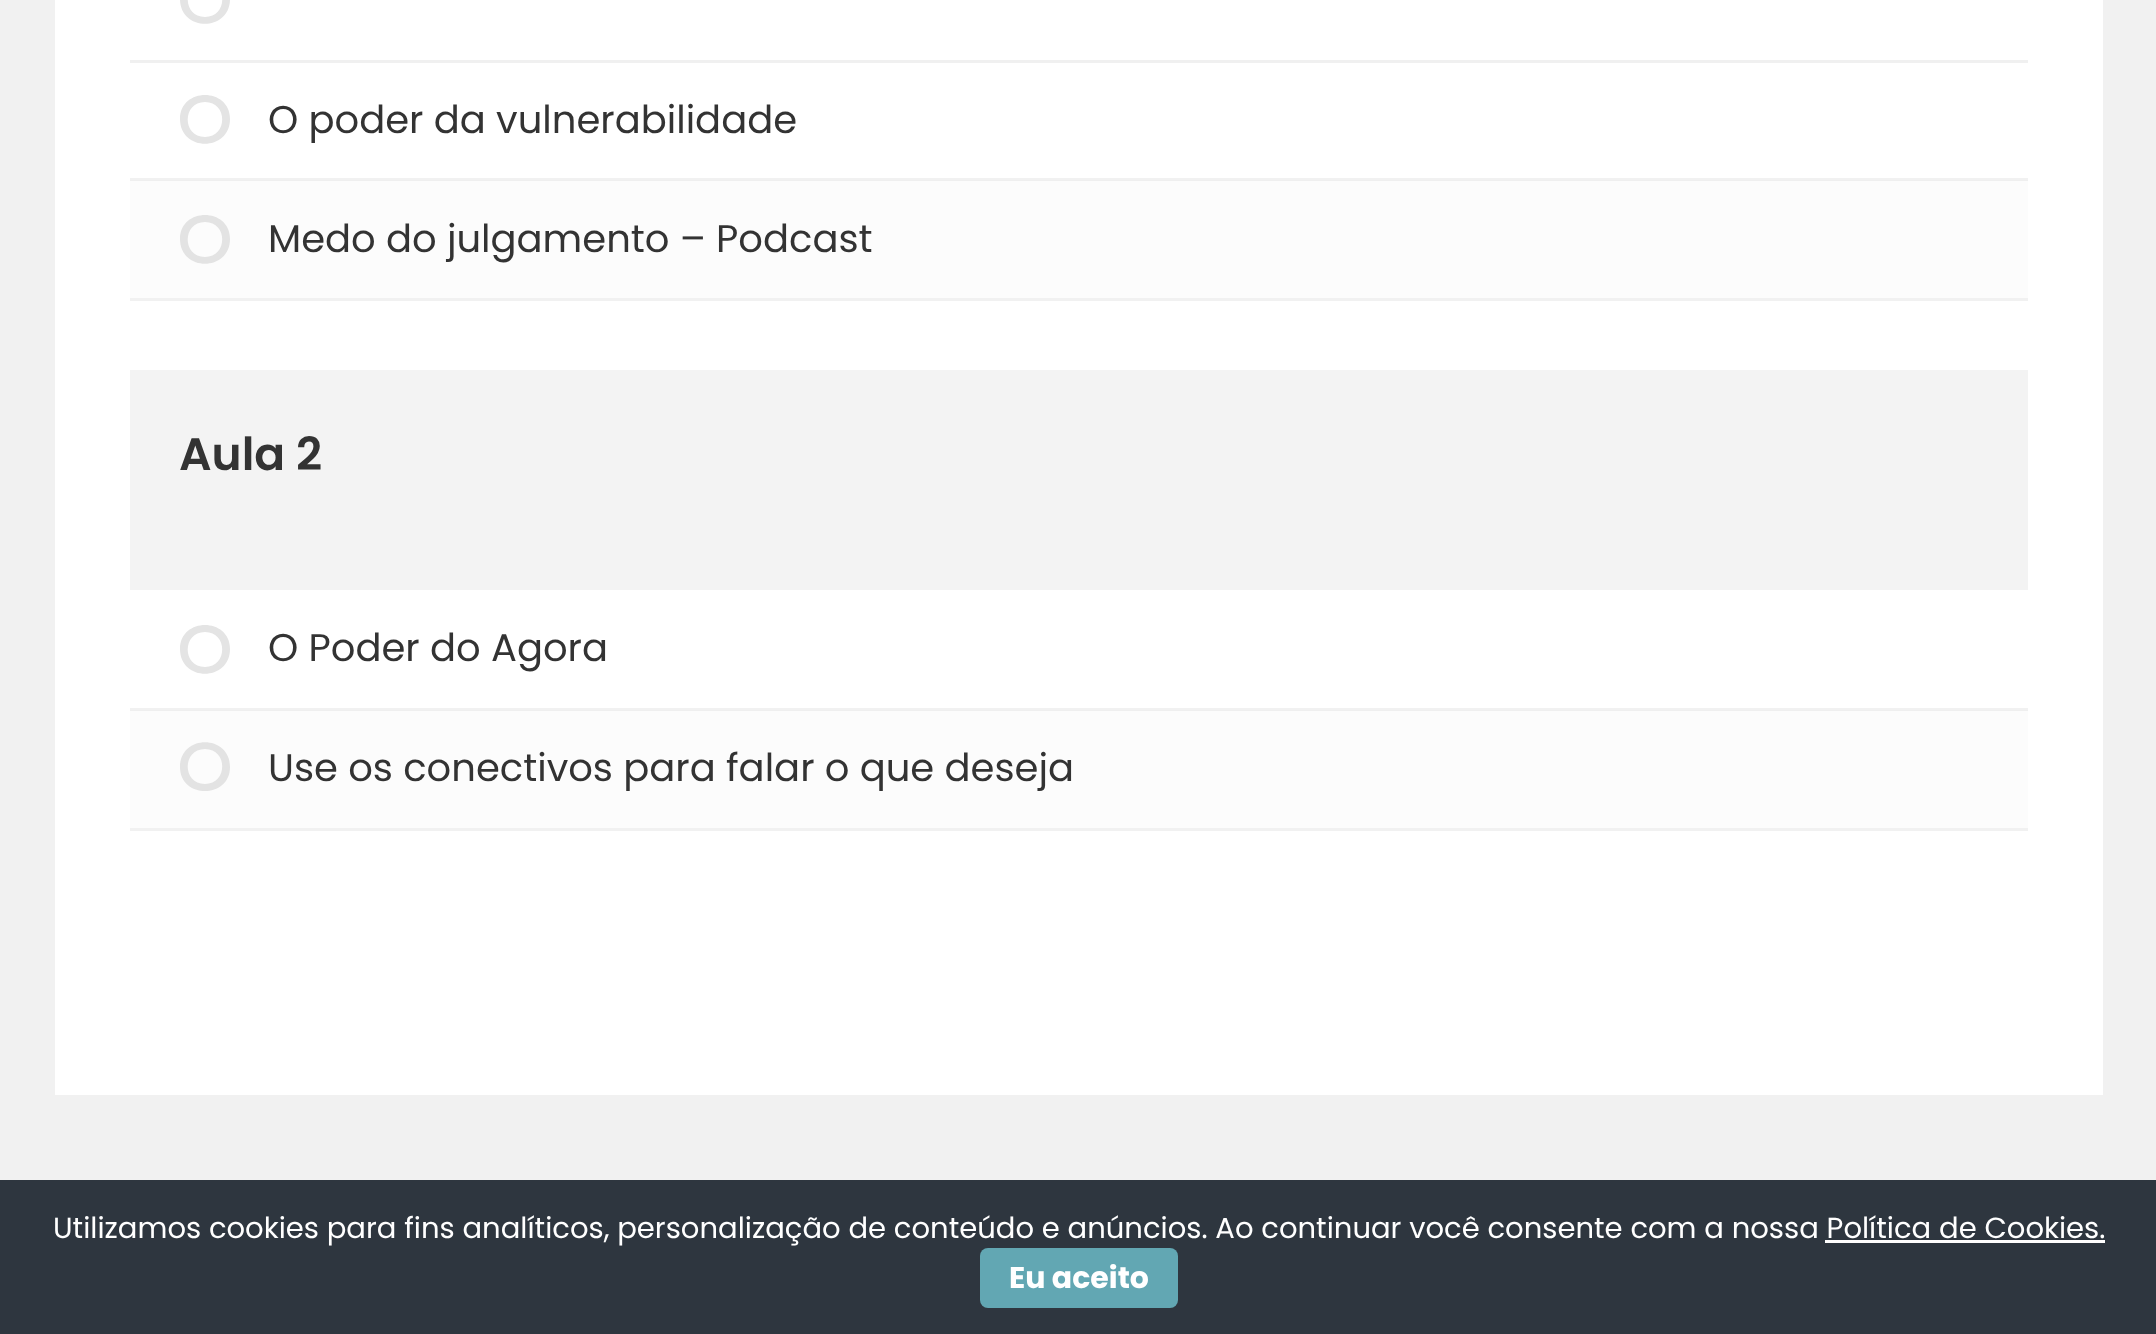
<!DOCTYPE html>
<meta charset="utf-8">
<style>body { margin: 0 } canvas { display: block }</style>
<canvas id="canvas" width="2156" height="1334"></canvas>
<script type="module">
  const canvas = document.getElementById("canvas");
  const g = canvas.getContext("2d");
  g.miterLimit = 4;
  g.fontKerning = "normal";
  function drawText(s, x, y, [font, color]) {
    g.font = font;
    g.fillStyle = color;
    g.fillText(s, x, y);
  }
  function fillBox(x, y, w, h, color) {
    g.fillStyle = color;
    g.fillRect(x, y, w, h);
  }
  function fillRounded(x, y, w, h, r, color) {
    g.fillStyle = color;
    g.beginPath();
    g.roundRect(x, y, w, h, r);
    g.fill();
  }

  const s1 = ["38.5px Poppins", "#333333"];
  const s2 = ["600 45.5px Poppins", "#333333"];
  const s3 = ["29.05px Poppins", "#FFFFFF"];
  const s4 = ["bold 30px Poppins", "#FFFFFF"];

  fillBox(0, 0, 2156, 1334, "#F1F1F1");
  fillBox(55, 0, 2048, 1095, "#FFFFFF");
  fillBox(130, 711, 1898, 117, "#FCFCFC");
  fillBox(130, 181, 1898, 117, "#FCFCFC");
  fillBox(130, 60, 1898, 3, "#F0F0F0");
  g.fillStyle = "#E4E4E4";
  g.beginPath();
  g.moveTo(205, -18);
  g.bezierCurveTo(228, -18, 228, 17, 205, 17);
  g.bezierCurveTo(182, 17, 182, -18, 205, -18);
  g.closePath();
  g.moveTo(230, -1);
  g.bezierCurveTo(230, -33, 180, -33, 180, -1);
  g.bezierCurveTo(180, 32, 230, 32, 230, -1);
  g.closePath();
  g.fill();
  fillBox(130, 178, 1898, 2, "#F1F1F1");
  fillBox(130, 180, 1898, 1, "#EFEFEF");
  g.fillStyle = "#E4E4E4";
  g.beginPath();
  g.moveTo(205, 102);
  g.bezierCurveTo(228, 102, 228, 137, 205, 137);
  g.bezierCurveTo(182, 137, 182, 102, 205, 102);
  g.closePath();
  g.moveTo(230, 119);
  g.bezierCurveTo(230, 87, 180, 87, 180, 119);
  g.bezierCurveTo(180, 152, 230, 152, 230, 119);
  g.closePath();
  g.fill();
  drawText("O poder da vulnerabilidade", 268, 133, s1);
  fillBox(130, 298, 1898, 3, "#F1F1F1");
  g.fillStyle = "#E3E3E3";
  g.beginPath();
  g.moveTo(205, 222);
  g.bezierCurveTo(228, 222, 228, 257, 205, 257);
  g.bezierCurveTo(182, 257, 182, 222, 205, 222);
  g.closePath();
  g.moveTo(230, 239);
  g.bezierCurveTo(230, 207, 180, 207, 180, 239);
  g.bezierCurveTo(180, 272, 230, 272, 230, 239);
  g.closePath();
  g.fill();
  drawText("Medo do julgamento – Podcast", 268, 252, s1);
  fillBox(130, 370, 1898, 220, "#F3F3F3");
  drawText("Aula 2", 179, 470, s2);
  fillBox(130, 708, 1898, 2, "#F1F1F1");
  fillBox(130, 710, 1898, 1, "#EFEFEF");
  g.fillStyle = "#E4E4E4";
  g.beginPath();
  g.moveTo(205, 632);
  g.bezierCurveTo(228, 632, 228, 667, 205, 667);
  g.bezierCurveTo(182, 667, 182, 632, 205, 632);
  g.closePath();
  g.moveTo(230, 649);
  g.bezierCurveTo(230, 617, 180, 617, 180, 649);
  g.bezierCurveTo(180, 682, 230, 682, 230, 649);
  g.closePath();
  g.fill();
  drawText("O Poder do Agora", 268, 661, s1);
  fillBox(130, 828, 1898, 3, "#F1F1F1");
  g.fillStyle = "#E3E3E3";
  g.beginPath();
  g.moveTo(205, 749);
  g.bezierCurveTo(228, 749, 228, 784, 205, 784);
  g.bezierCurveTo(182, 784, 182, 749, 205, 749);
  g.closePath();
  g.moveTo(230, 767);
  g.bezierCurveTo(230, 734, 180, 734, 180, 767);
  g.bezierCurveTo(180, 799, 230, 799, 230, 767);
  g.closePath();
  g.fill();
  drawText("Use os conectivos para falar o que deseja", 268, 781, s1);
  fillBox(0, 1180, 2156, 154, "#2E363F");
  drawText("Utilizamos cookies para fins analíticos, personalização de conteúdo e anúncios. Ao continuar você consente com a nossa Política de Cookies.", 53, 1238, s3);
  fillBox(1825, 1240, 280, 3, "#FFFFFF");
  fillRounded(980, 1248, 198, 60, 8, "#62A7B3");
  drawText("Eu aceito", 1009, 1288, s4);
</script>
